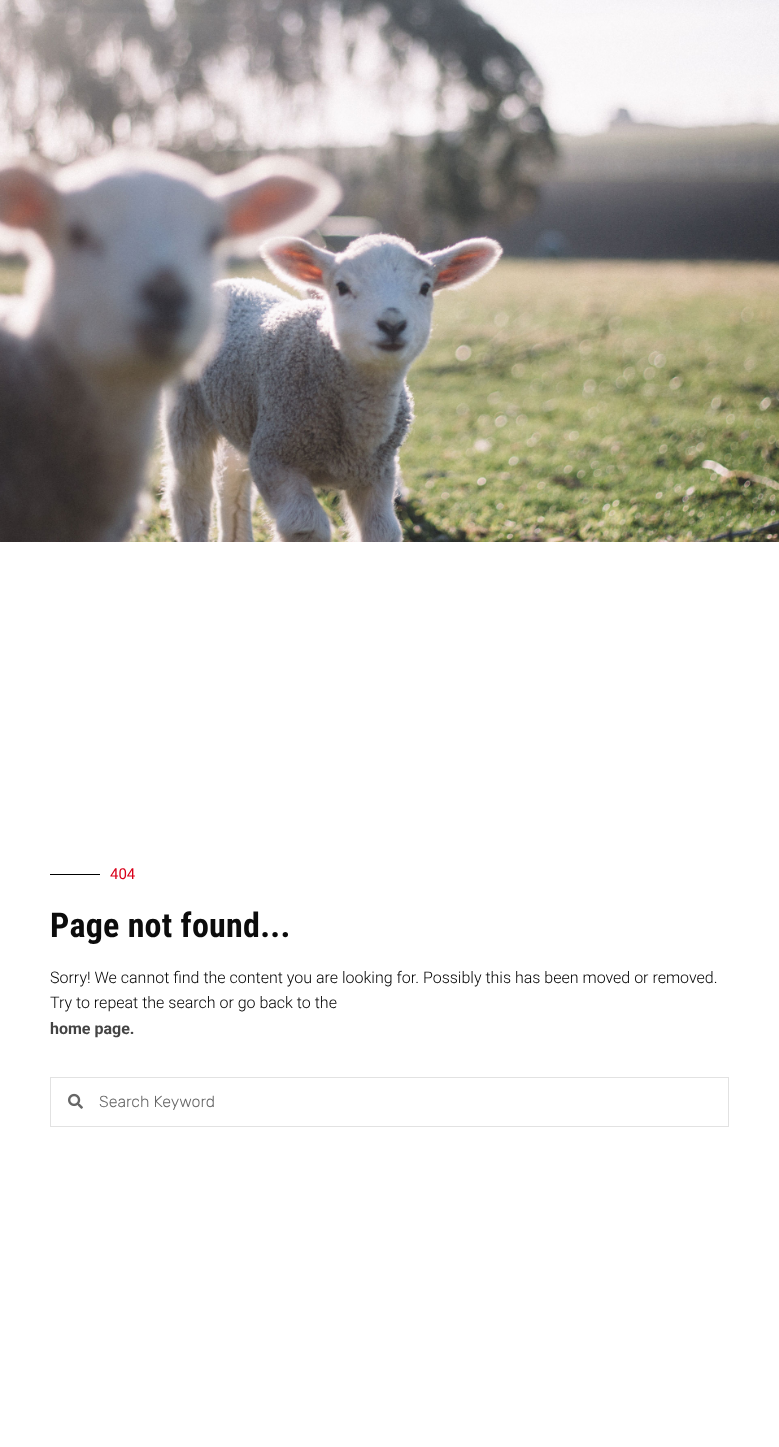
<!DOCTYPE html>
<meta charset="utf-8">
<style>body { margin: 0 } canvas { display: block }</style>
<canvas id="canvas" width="779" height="1447"></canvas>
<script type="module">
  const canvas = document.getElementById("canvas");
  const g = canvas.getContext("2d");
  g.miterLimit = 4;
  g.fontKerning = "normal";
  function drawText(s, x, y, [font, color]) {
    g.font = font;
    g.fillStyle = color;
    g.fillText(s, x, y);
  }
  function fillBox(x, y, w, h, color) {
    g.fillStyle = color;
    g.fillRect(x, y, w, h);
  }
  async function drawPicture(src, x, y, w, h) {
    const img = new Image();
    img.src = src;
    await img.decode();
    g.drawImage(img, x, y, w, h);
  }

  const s1 = ["15px Roboto", "#D9001A"];
  const s2 = ["bold 34px Roboto Condensed", "#0C0C0C"];
  const s3 = ["300 16px Roboto", "#000000"];
  const s4 = ["bold 16px Roboto", "#444444"];
  const s5 = ["300 16px Rubik", "#666666"];

  fillBox(0, 0, 779, 1447, "#FFFFFF");
  await drawPicture("pic1.png", 0, 0, 779, 542);
  fillBox(50, 874, 50, 1, "#000000");
  drawText("404", 110, 879, s1);
  g.letterSpacing = "0.25px";
  drawText("Page not found...", 50, 937, s2);
  g.letterSpacing = "0px";
  drawText("Sorry! We cannot find the content you are looking for. Possibly this has been moved or removed.", 50, 983, s3);
  drawText("Try to repeat the search or go back to the", 50, 1008, s3);
  drawText("home page.", 50, 1034, s4);
  g.strokeStyle = "#E2E2E2";
  g.strokeRect(50.5, 1077.5, 678, 49);
  await drawPicture("pic2.png", 68, 1093, 15, 16);
  drawText("Search Keyword", 99, 1107, s5);
</script>
